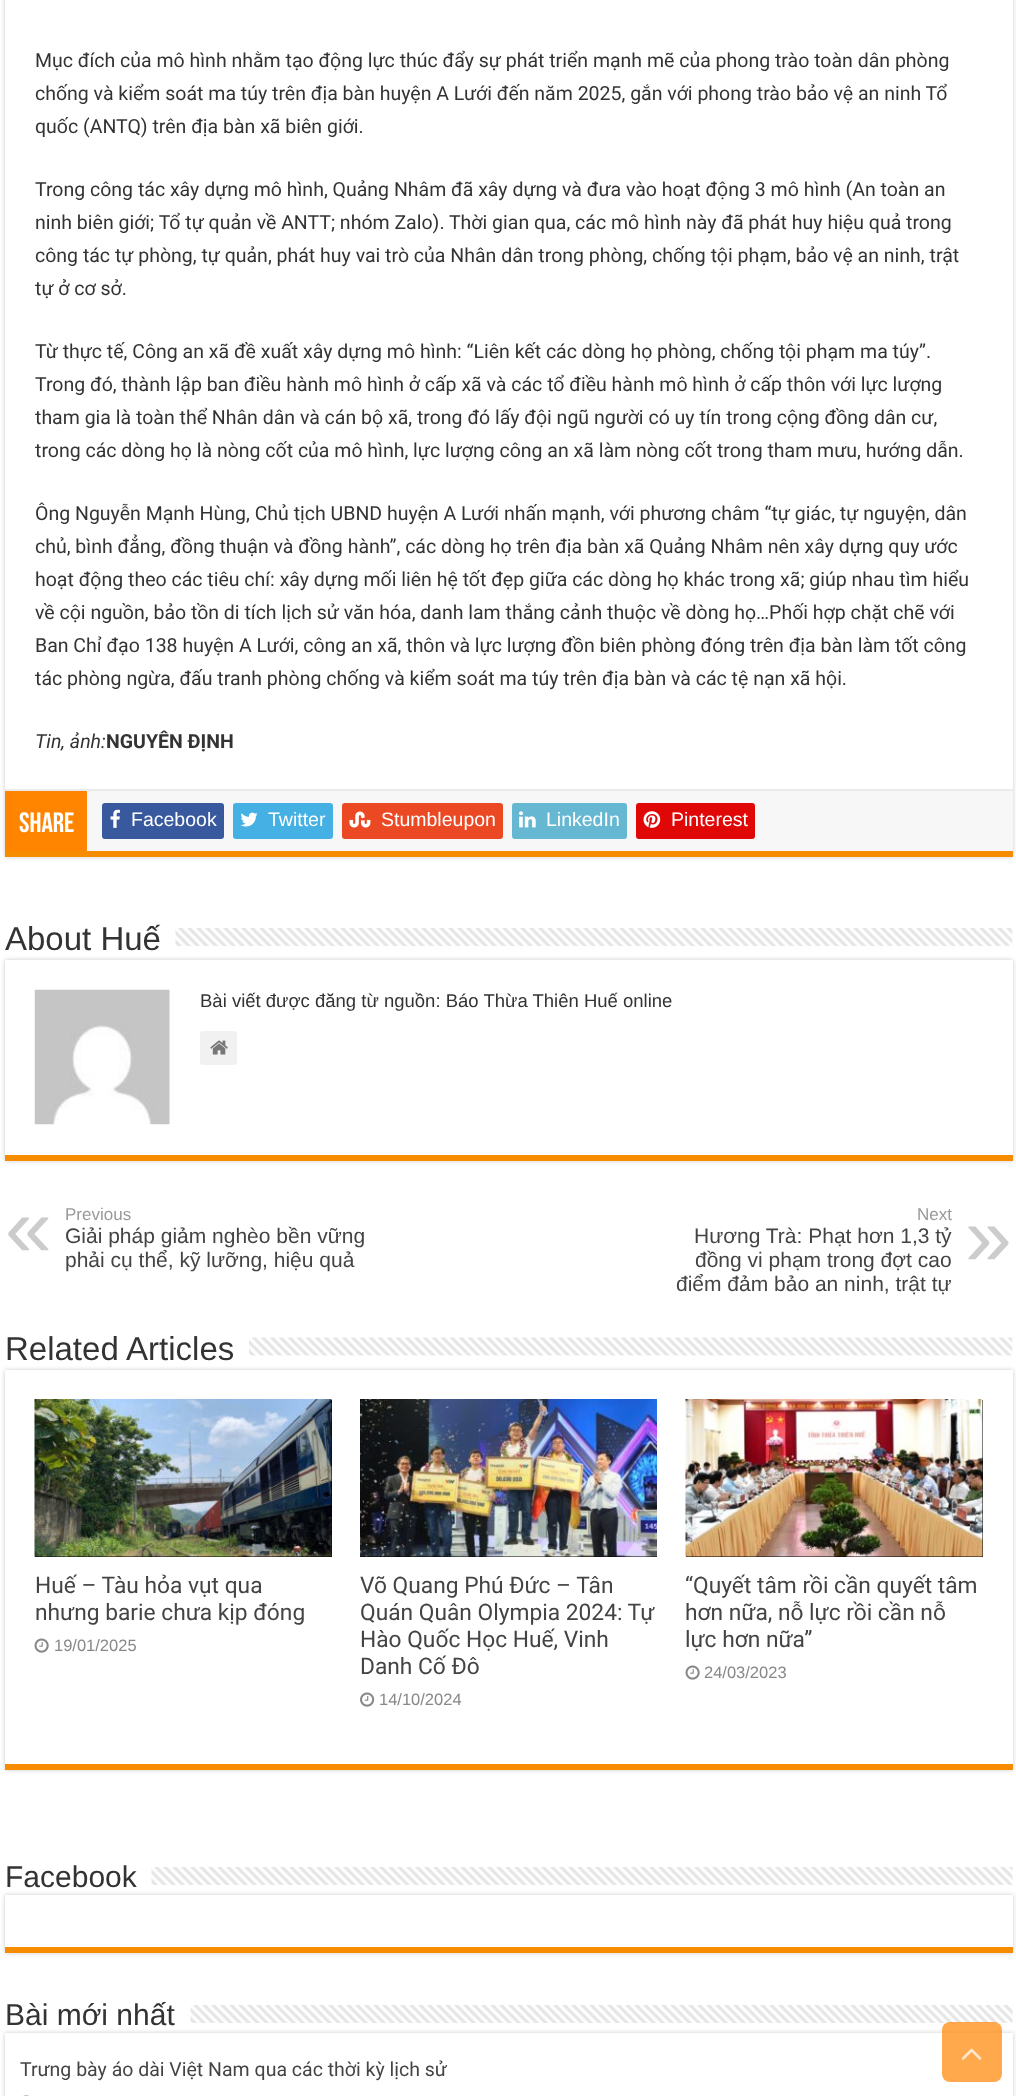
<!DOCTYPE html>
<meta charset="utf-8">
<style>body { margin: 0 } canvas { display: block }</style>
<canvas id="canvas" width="1016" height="2096"></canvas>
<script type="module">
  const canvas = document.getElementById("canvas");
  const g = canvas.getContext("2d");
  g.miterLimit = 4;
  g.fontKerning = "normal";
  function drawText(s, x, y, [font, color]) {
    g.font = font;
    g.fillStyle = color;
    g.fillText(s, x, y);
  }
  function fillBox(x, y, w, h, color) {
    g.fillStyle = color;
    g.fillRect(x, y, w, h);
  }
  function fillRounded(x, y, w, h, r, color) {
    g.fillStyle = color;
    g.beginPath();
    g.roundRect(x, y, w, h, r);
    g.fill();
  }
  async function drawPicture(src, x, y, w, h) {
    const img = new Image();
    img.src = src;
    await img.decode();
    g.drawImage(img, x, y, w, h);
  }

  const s1 = ["19.5px Roboto", "#333333"];
  const s2 = ["italic 19.5px Roboto", "#333333"];
  const s3 = ["bold 19.5px Roboto", "#333333"];
  const s4 = ["bold 28px Bebas Neue", "#FFFFFF"];
  const s5 = ["19.5px Liberation Sans", "#FFFFFF"];
  const s6 = ["33px Liberation Sans", "#333333"];
  const s7 = ["18.5px Liberation Sans", "#333333"];
  const s8 = ["17px Liberation Sans", "#999999"];
  const s9 = ["84px Liberation Sans", "#CCCCCC"];
  const s10 = ["21px Liberation Sans", "#444444"];
  const s11 = ["22.75px Roboto", "#444444"];
  const s12 = ["16.5px Liberation Sans", "#888888"];
  const s13 = ["30px Liberation Sans", "#333333"];
  const s14 = ["19.5px Roboto", "#444444"];

  fillBox(0, 0, 1016, 2096, "#FFFFFF");
  g.fillStyle = "#CACACA";
  g.filter = "blur(2px)";
  g.beginPath();
  g.rect(5, -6, 1008, 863);
  g.fill();
  g.filter = "none";
  fillBox(5, 0, 1008, 789, "#FFFFFF");
  fillBox(5, 851, 1008, 6, "#F88C00");
  drawText("Mục đích của mô hình nhằm tạo động lực thúc đẩy sự phát triển mạnh mẽ của phong trào toàn dân phòng", 35, 67, s1);
  drawText("chống và kiểm soát ma túy trên địa bàn huyện A Lưới đến năm 2025, gắn với phong trào bảo vệ an ninh Tổ", 35, 100, s1);
  drawText("quốc (ANTQ) trên địa bàn xã biên giới.", 35, 133, s1);
  drawText("Trong công tác xây dựng mô hình, Quảng Nhâm đã xây dựng và đưa vào hoạt động 3 mô hình (An toàn an", 35, 196, s1);
  drawText("ninh biên giới; Tổ tự quản về ANTT; nhóm Zalo). Thời gian qua, các mô hình này đã phát huy hiệu quả trong", 35, 229, s1);
  drawText("công tác tự phòng, tự quản, phát huy vai trò của Nhân dân trong phòng, chống tội phạm, bảo vệ an ninh, trật", 35, 262, s1);
  drawText("tự ở cơ sở.", 35, 295, s1);
  drawText("Từ thực tế, Công an xã đề xuất xây dựng mô hình: “Liên kết các dòng họ phòng, chống tội phạm ma túy”.", 35, 358, s1);
  drawText("Trong đó, thành lập ban điều hành mô hình ở cấp xã và các tổ điều hành mô hình ở cấp thôn với lực lượng", 35, 391, s1);
  drawText("tham gia là toàn thể Nhân dân và cán bộ xã, trong đó lấy đội ngũ người có uy tín trong cộng đồng dân cư,", 35, 424, s1);
  drawText("trong các dòng họ là nòng cốt của mô hình, lực lượng công an xã làm nòng cốt trong tham mưu, hướng dẫn.", 35, 457, s1);
  drawText("Ông Nguyễn Mạnh Hùng, Chủ tịch UBND huyện A Lưới nhấn mạnh, với phương châm “tự giác, tự nguyện, dân", 35, 520, s1);
  drawText("chủ, bình đẳng, đồng thuận và đồng hành”, các dòng họ trên địa bàn xã Quảng Nhâm nên xây dựng quy ước", 35, 553, s1);
  drawText("hoạt động theo các tiêu chí: xây dựng mối liên hệ tốt đẹp giữa các dòng họ khác trong xã; giúp nhau tìm hiểu", 35, 586, s1);
  drawText("về cội nguồn, bảo tồn di tích lịch sử văn hóa, danh lam thắng cảnh thuộc về dòng họ…Phối hợp chặt chẽ với", 35, 619, s1);
  drawText("Ban Chỉ đạo 138 huyện A Lưới, công an xã, thôn và lực lượng đồn biên phòng đóng trên địa bàn làm tốt công", 35, 652, s1);
  drawText("tác phòng ngừa, đấu tranh phòng chống và kiểm soát ma túy trên địa bàn và các tệ nạn xã hội.", 35, 685, s1);
  drawText("Tin, ảnh:", 35, 748, s2);
  drawText("NGUYÊN ĐỊNH", 106, 748, s3);
  fillBox(87, 791, 926, 60, "#F7F7F7");
  fillBox(5, 789, 1008, 2, "#EAEAEA");
  fillBox(5, 791, 82, 60, "#FF8500");
  drawText("Share", 19, 832, s4);
  fillRounded(102, 803, 122, 36, 3, "#39599F");
  await drawPicture("pic1.png", 110, 809, 10, 19);
  drawText("Facebook", 131, 826, s5);
  fillRounded(233, 803, 100, 36, 3, "#45B0E3");
  await drawPicture("pic2.png", 240, 812, 18, 15);
  drawText("Twitter", 268, 826, s5);
  fillRounded(342, 803, 161, 36, 3, "#EB4924");
  await drawPicture("pic3.png", 349, 811, 22, 17);
  drawText("Stumbleupon", 381, 826, s5);
  fillRounded(512, 803, 115, 36, 3, "#65B7D2");
  await drawPicture("pic4.png", 519, 811, 17, 17);
  drawText("LinkedIn", 546, 826, s5);
  fillRounded(636, 803, 119, 36, 3, "#E00707");
  await drawPicture("pic5.png", 643, 811, 18, 17);
  drawText("Pinterest", 671, 826, s5);
  drawText("About Huế", 5, 950, s6);
  await drawPicture("pic6.png", 175, 928, 838, 18);
  g.fillStyle = "#CACACA";
  g.filter = "blur(2px)";
  g.beginPath();
  g.rect(5, 960, 1008, 201);
  g.fill();
  g.filter = "none";
  fillBox(5, 960, 1008, 195, "#FFFFFF");
  fillBox(5, 1155, 1008, 6, "#F88C00");
  await drawPicture("pic7.png", 34, 989, 136, 136);
  drawText("Bài viết được đăng từ nguồn: Báo Thừa Thiên Huế online", 200, 1007, s7);
  fillRounded(200, 1031, 37, 34, 3, "#F1F1F1");
  await drawPicture("pic8.png", 210, 1040, 18, 15);
  drawText("Previous", 65, 1220, s8);
  drawText("«", 5, 1256, s9);
  drawText("Giải pháp giảm nghèo bền vững", 65, 1243, s10);
  drawText("phải cụ thể, kỹ lưỡng, hiệu quả", 65, 1267, s10);
  drawText("Next", 917, 1220, s8);
  drawText("Hương Trà: Phạt hơn 1,3 tỷ", 694, 1243, s10);
  drawText("»", 965, 1265, s9);
  drawText("đồng vi phạm trong đợt cao", 695, 1267, s10);
  drawText("điểm đảm bảo an ninh, trật tự", 676, 1291, s10);
  drawText("Related Articles", 5, 1360, s6);
  await drawPicture("pic9.png", 249, 1337, 764, 19);
  g.fillStyle = "#CACACA";
  g.filter = "blur(2px)";
  g.beginPath();
  g.rect(5, 1370, 1008, 400);
  g.fill();
  g.filter = "none";
  fillBox(5, 1370, 1008, 394, "#FFFFFF");
  fillBox(5, 1764, 1008, 6, "#F88C00");
  fillBox(35, 1400, 297, 157, "#000000");
  await drawPicture("pic10.png", 34, 1399, 298, 158);
  drawText("Huế – Tàu hỏa vụt qua", 35, 1593, s11);
  drawText("nhưng barie chưa kịp đóng", 35, 1620, s11);
  await drawPicture("pic11.png", 34, 1638, 15, 15);
  drawText("19/01/2025", 54, 1651, s12);
  fillBox(360, 1556, 297, 1, "#000000");
  await drawPicture("pic12.png", 360, 1399, 297, 158);
  drawText("Võ Quang Phú Đức – Tân", 360, 1593, s11);
  drawText("Quán Quân Olympia 2024: Tự", 360, 1620, s11);
  drawText("Hào Quốc Học Huế, Vinh", 360, 1647, s11);
  drawText("Danh Cố Đô", 360, 1674, s11);
  await drawPicture("pic13.png", 360, 1692, 15, 15);
  drawText("14/10/2024", 379, 1705, s12);
  fillBox(686, 1400, 297, 157, "#000000");
  await drawPicture("pic14.png", 685, 1399, 298, 158);
  drawText("“Quyết tâm rồi cần quyết tâm", 685, 1593, s11);
  drawText("hơn nữa, nỗ lực rồi cần nỗ", 685, 1620, s11);
  drawText("lực hơn nữa”", 685, 1647, s11);
  await drawPicture("pic11.png", 685, 1665, 15, 15);
  drawText("24/03/2023", 704, 1678, s12);
  drawText("Facebook", 5, 1887, s13);
  await drawPicture("pic15.png", 151, 1867, 862, 18);
  g.fillStyle = "#CACACA";
  g.filter = "blur(2px)";
  g.beginPath();
  g.rect(5, 1895, 1008, 58);
  g.fill();
  g.filter = "none";
  fillBox(5, 1895, 1008, 52, "#FFFFFF");
  fillBox(5, 1947, 1008, 6, "#F88C00");
  drawText("Bài mới nhất", 5, 2025, s13);
  await drawPicture("pic16.png", 190, 2005, 823, 18);
  g.fillStyle = "#CACACA";
  g.filter = "blur(2px)";
  g.beginPath();
  g.rect(5, 2033, 1008, 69);
  g.fill();
  g.filter = "none";
  fillBox(5, 2033, 1008, 63, "#FFFFFF");
  drawText("Trưng bày áo dài Việt Nam qua các thời kỳ lịch sử", 20, 2076, s14);
  await drawPicture("pic17.png", 23, 2095, 6, 1);
  fillRounded(942, 2022, 60, 60, 8, "rgba(255, 133, 0, 0.7)");
  await drawPicture("pic18.png", 961, 2048, 21, 12);
</script>
